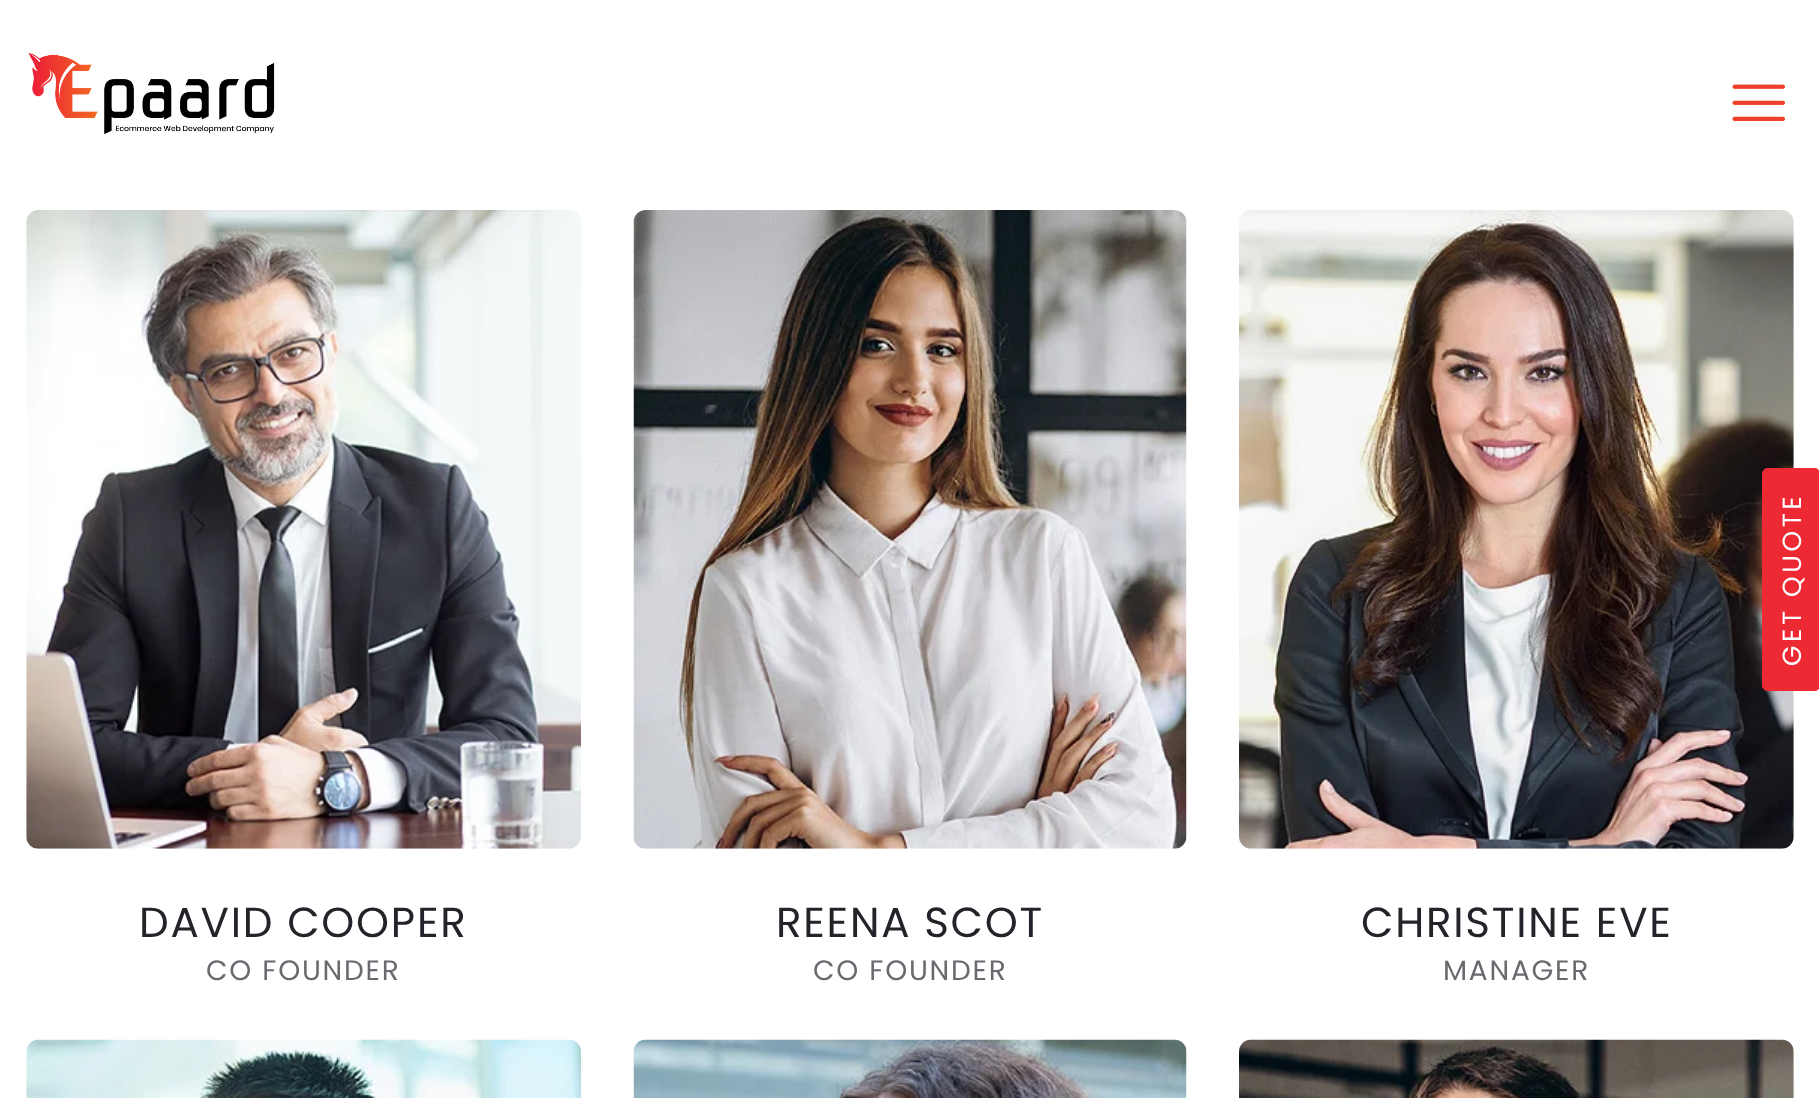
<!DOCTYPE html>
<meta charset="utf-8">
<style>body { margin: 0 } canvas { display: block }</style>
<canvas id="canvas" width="1819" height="1098"></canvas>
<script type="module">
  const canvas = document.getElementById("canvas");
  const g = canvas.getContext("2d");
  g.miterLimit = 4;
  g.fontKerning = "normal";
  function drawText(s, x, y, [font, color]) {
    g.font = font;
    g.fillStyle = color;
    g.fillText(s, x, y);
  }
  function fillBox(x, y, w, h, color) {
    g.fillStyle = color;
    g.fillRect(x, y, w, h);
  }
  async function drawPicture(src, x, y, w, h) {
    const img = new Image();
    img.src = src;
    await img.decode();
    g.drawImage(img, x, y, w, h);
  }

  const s1 = ["42px Poppins", "#222429"];
  const s2 = ["28px Poppins", "#686A6F"];

  fillBox(0, 0, 1819, 1098, "#FFFFFF");
  await drawPicture("pic1.png", 28, 53, 247, 82);
  await drawPicture("pic2.png", 1732, 84, 53, 37);
  await drawPicture("pic5.png", 1239, 210, 555, 639);
  g.fillStyle = "#ED2A34";
  g.beginPath();
  g.moveTo(1762, 686);
  g.lineTo(1762, 474);
  g.bezierCurveTo(1762, 471, 1765, 468, 1767, 468);
  g.lineTo(1815, 468);
  g.bezierCurveTo(1818, 468, 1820, 471, 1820, 474);
  g.lineTo(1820, 686);
  g.bezierCurveTo(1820, 688, 1818, 691, 1815, 691);
  g.lineTo(1767, 691);
  g.bezierCurveTo(1765, 691, 1762, 688, 1762, 686);
  g.closePath();
  g.fill();
  g.letterSpacing = "3.5px";
  g.font = "26.25px Poppins";
  g.fillStyle = "#FFFFFF";
  g.save();
  g.translate(1801, 666);
  g.rotate(-90 * Math.PI / 180);
  g.fillText("GET QUOTE", 0, 0);
  g.restore();
  await drawPicture("pic3.png", 26, 210, 555, 639);
  g.letterSpacing = "1.75px";
  drawText("DAVID COOPER", 139, 937, s1);
  drawText("CO FOUNDER", 206, 980, s2);
  await drawPicture("pic4.png", 633, 210, 554, 639);
  drawText("REENA SCOT", 776, 937, s1);
  drawText("CO FOUNDER", 813, 980, s2);
  drawText("CHRISTINE EVE", 1361, 937, s1);
  drawText("MANAGER", 1443, 980, s2);
  await drawPicture("pic6.png", 26, 1039, 555, 59);
  await drawPicture("pic7.png", 633, 1039, 554, 59);
  await drawPicture("pic8.png", 1239, 1039, 555, 59);
</script>
